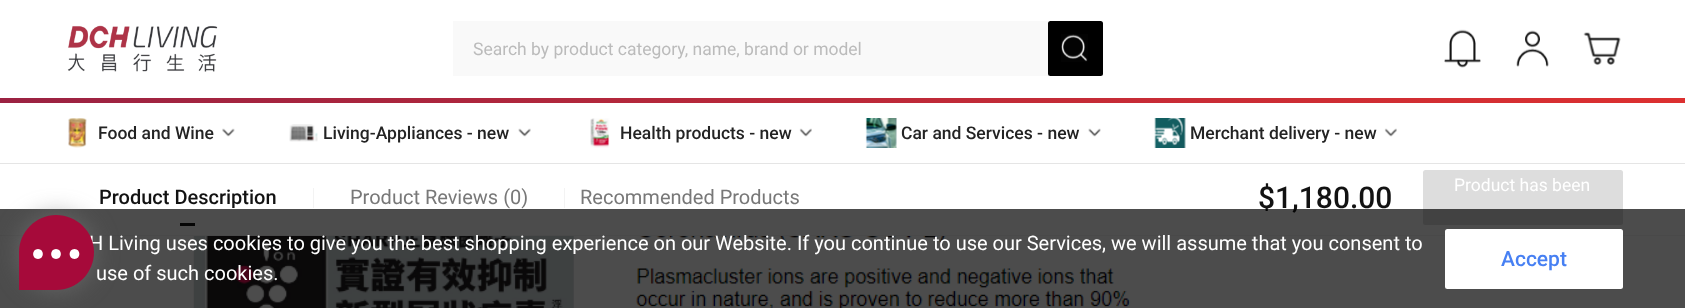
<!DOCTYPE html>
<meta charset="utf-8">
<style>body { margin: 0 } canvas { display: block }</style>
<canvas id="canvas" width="1685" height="308"></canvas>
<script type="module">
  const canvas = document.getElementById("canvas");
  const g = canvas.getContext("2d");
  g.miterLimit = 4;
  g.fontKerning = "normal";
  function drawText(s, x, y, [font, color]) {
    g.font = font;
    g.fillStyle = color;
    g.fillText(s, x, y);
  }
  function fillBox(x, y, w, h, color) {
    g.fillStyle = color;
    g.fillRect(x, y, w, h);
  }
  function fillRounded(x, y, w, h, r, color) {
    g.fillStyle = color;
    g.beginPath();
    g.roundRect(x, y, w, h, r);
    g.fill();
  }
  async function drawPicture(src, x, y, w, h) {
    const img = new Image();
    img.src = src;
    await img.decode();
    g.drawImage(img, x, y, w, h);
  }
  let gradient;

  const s1 = ["500 30px Roboto", "#121212"];
  const s2 = ["20px Roboto", "#FFFFFF"];
  const s3 = ["17.5px Roboto", "#BBBBBB"];
  const s4 = ["500 17.5px Roboto", "#232323"];
  const s5 = ["500 20px Roboto", "#121212"];
  const s6 = ["20px Roboto", "#787878"];
  const s7 = ["17.5px Roboto", "#FFFFFF"];
  const s8 = ["500 21px Roboto", "#4780F3"];

  fillBox(0, 0, 1685, 308, "#FFFFFF");
  fillBox(0, 235, 1685, 1, "#F3F3F3");
  fillBox(180, 223, 15, 3, "#121212");
  drawText("$1,180.00", 1258, 208, s1);
  fillRounded(1423, 170, 200, 55, 2.5, "#DDDDDD");
  await drawPicture("pic16.png", 193, 236, 946, 72);
  fillBox(0, 209, 1685, 99, "rgba(0, 0, 0, 0.7)");
  g.fillStyle = "rgba(119, 119, 119, 0.64)";
  g.filter = "blur(12.5px)";
  g.beginPath();
  g.roundRect(19, 215, 75, 75, 37.5);
  g.fill();
  g.filter = "none";
  drawText("H Living uses cookies to give you the best shopping experience on our Website. If you continue to use our Services, we will assume that you consent to", 89, 250, s2);
  g.fillStyle = "#A60A3A";
  g.beginPath();
  g.moveTo(56, 215);
  g.bezierCurveTo(36, 215, 19, 232, 19, 252);
  g.lineTo(19, 290);
  g.lineTo(56, 290);
  g.bezierCurveTo(77, 290, 94, 273, 94, 252);
  g.bezierCurveTo(94, 232, 77, 215, 56, 215);
  g.closePath();
  g.fill();
  g.fillStyle = "#FFFFFF";
  g.beginPath();
  g.moveTo(74.5, 249);
  g.bezierCurveTo(68, 249, 68, 259, 74.5, 259);
  g.bezierCurveTo(81, 259, 81, 249, 74.5, 249);
  g.closePath();
  g.moveTo(38, 249);
  g.bezierCurveTo(31.5, 249, 31.5, 259, 38, 259);
  g.bezierCurveTo(44.5, 259, 44.5, 249, 38, 249);
  g.closePath();
  g.fill();
  g.beginPath();
  g.moveTo(56, 249);
  g.bezierCurveTo(49.5, 249, 49.5, 259, 56, 259);
  g.bezierCurveTo(62.5, 259, 62.5, 249, 56, 249);
  g.closePath();
  g.fill();
  await drawPicture("pic1.png", 67, 25, 151, 47);
  fillBox(453, 21, 650, 55, "#F9F9F9");
  drawText("Search by product category, name, brand or model", 473, 55, s3);
  fillRounded(1048, 21, 55, 55, 2.5, "#000000");
  await drawPicture("pic2.png", 1061, 34, 27, 28);
  await drawPicture("pic3.png", 1444, 29, 37, 39);
  await drawPicture("pic4.png", 1516, 30, 33, 37);
  await drawPicture("pic5.png", 1583, 32, 38, 33);
  gradient = g.createLinearGradient(1685, 100, 0, 100);
  gradient.addColorStop(0, "#DC3030");
  gradient.addColorStop(1, "#9B2242");
  g.fillStyle = gradient;
  g.fillRect(0, 98, 1685, 5);
  fillBox(0, 163, 1685, 1, "#E5E5E5");
  await drawPicture("pic6.png", 68, 118, 19, 30);
  drawText("Food and Wine", 98, 139, s4);
  await drawPicture("pic7.png", 222, 128, 13, 9);
  await drawPicture("pic8.png", 289, 124, 29, 18);
  drawText("Living-Appliances - new", 323, 139, s4);
  await drawPicture("pic9.png", 518, 128, 13, 9);
  await drawPicture("pic10.png", 590, 118, 20, 30);
  drawText("Health products - new", 620, 139, s4);
  await drawPicture("pic11.png", 799, 128, 13, 9);
  await drawPicture("pic12.png", 865, 118, 32, 30);
  drawText("Car and Services - new", 901, 139, s4);
  await drawPicture("pic13.png", 1088, 128, 13, 9);
  await drawPicture("pic14.png", 1154, 118, 32, 30);
  drawText("Merchant delivery - new", 1190, 139, s4);
  await drawPicture("pic15.png", 1384, 128, 13, 9);
  drawText("Product Description", 99, 204, s5);
  fillBox(313, 188, 1, 20, "#F3F3F3");
  drawText("Product Reviews (0)", 350, 204, s6);
  fillBox(564, 188, 1, 20, "#F3F3F3");
  drawText("Recommended Products", 580, 204, s6);
  drawText("Product has been", 1454, 191, s7);
  drawText("use of such cookies.", 96, 280, s2);
  fillRounded(1445, 229, 178, 60, 2.5, "#FFFFFF");
  drawText("Accept", 1501, 266, s8);
</script>
